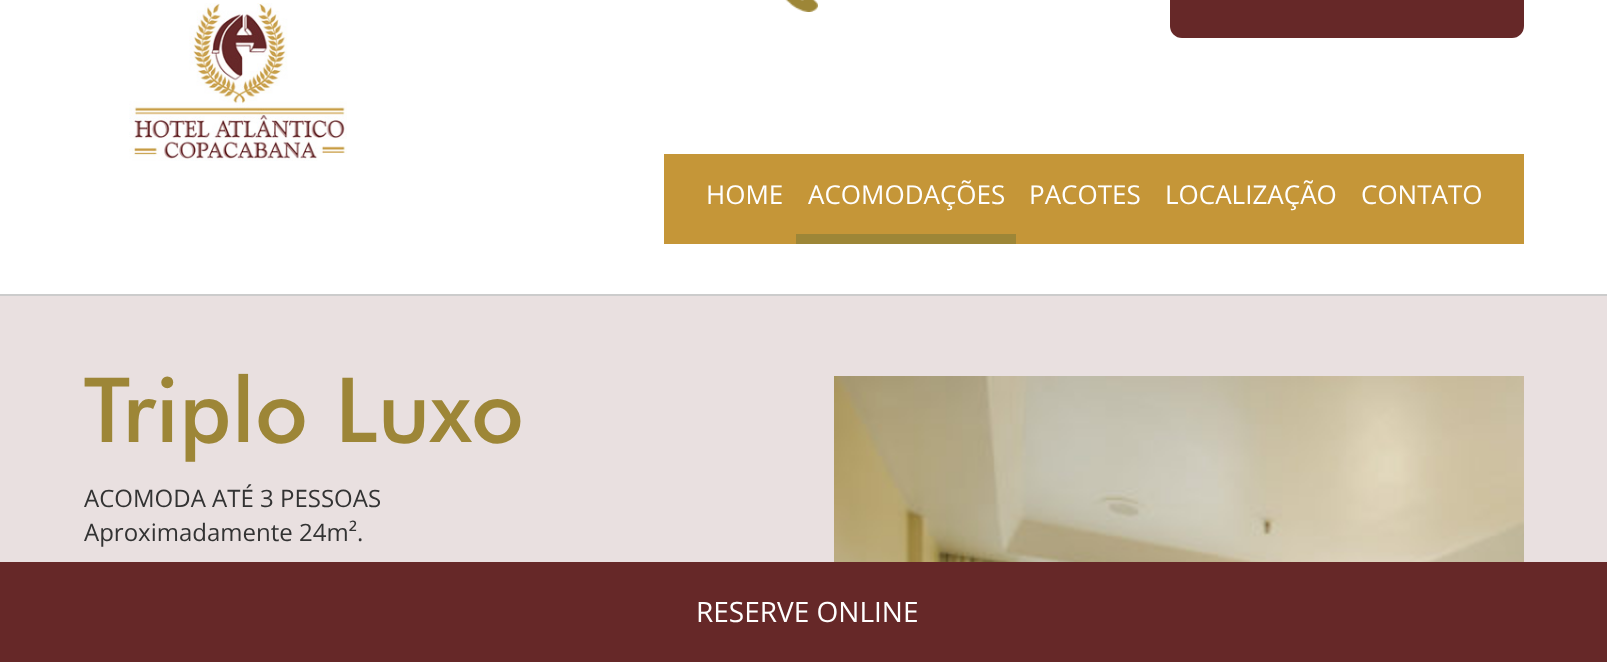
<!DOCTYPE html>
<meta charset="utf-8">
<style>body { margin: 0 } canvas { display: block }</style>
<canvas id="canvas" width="1607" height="662"></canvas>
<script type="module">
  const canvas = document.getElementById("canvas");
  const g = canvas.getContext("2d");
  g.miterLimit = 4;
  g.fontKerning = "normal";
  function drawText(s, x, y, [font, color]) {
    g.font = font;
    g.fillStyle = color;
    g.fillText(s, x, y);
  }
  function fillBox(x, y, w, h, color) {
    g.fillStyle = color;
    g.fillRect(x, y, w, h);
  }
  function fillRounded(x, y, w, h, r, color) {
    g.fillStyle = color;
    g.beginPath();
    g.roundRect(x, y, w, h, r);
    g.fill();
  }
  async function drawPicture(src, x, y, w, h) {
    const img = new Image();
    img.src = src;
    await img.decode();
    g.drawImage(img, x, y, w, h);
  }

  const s1 = ["26px Open Sans", "#FFFFFF"];
  const s2 = ["500 90px Futura", "#9D8637"];
  const s3 = ["24px Open Sans", "#333333"];
  const s4 = ["28px Open Sans", "#FFFFFF"];

  fillBox(0, 0, 1607, 662, "#FFFFFF");
  await drawPicture("pic1.png", 129, 3, 218, 158);
  await drawPicture("pic2.png", 785, 0, 33, 12);
  fillRounded(1170, -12, 354, 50, 12, "#662828");
  fillBox(664, 154, 860, 90, "#C59638");
  drawText("HOME", 706, 204, s1);
  fillBox(796, 234, 220, 10, "#9D8637");
  drawText("ACOMODAÇÕES", 808, 204, s1);
  drawText("PACOTES", 1029, 204, s1);
  drawText("LOCALIZAÇÃO", 1165, 204, s1);
  drawText("CONTATO", 1361, 204, s1);
  fillBox(0, 296, 1607, 266, "#E9E0E0");
  fillBox(0, 294, 1607, 2, "#CCCCCC");
  drawText("Triplo Luxo", 84, 442, s2);
  drawText("ACOMODA ATÉ 3 PESSOAS", 84, 507, s3);
  drawText("Aproximadamente 24m².", 84, 541, s3);
  await drawPicture("pic3.png", 834, 376, 690, 186);
  fillBox(0, 562, 1607, 100, "#662828");
  drawText("RESERVE ONLINE", 696, 622, s4);
</script>
